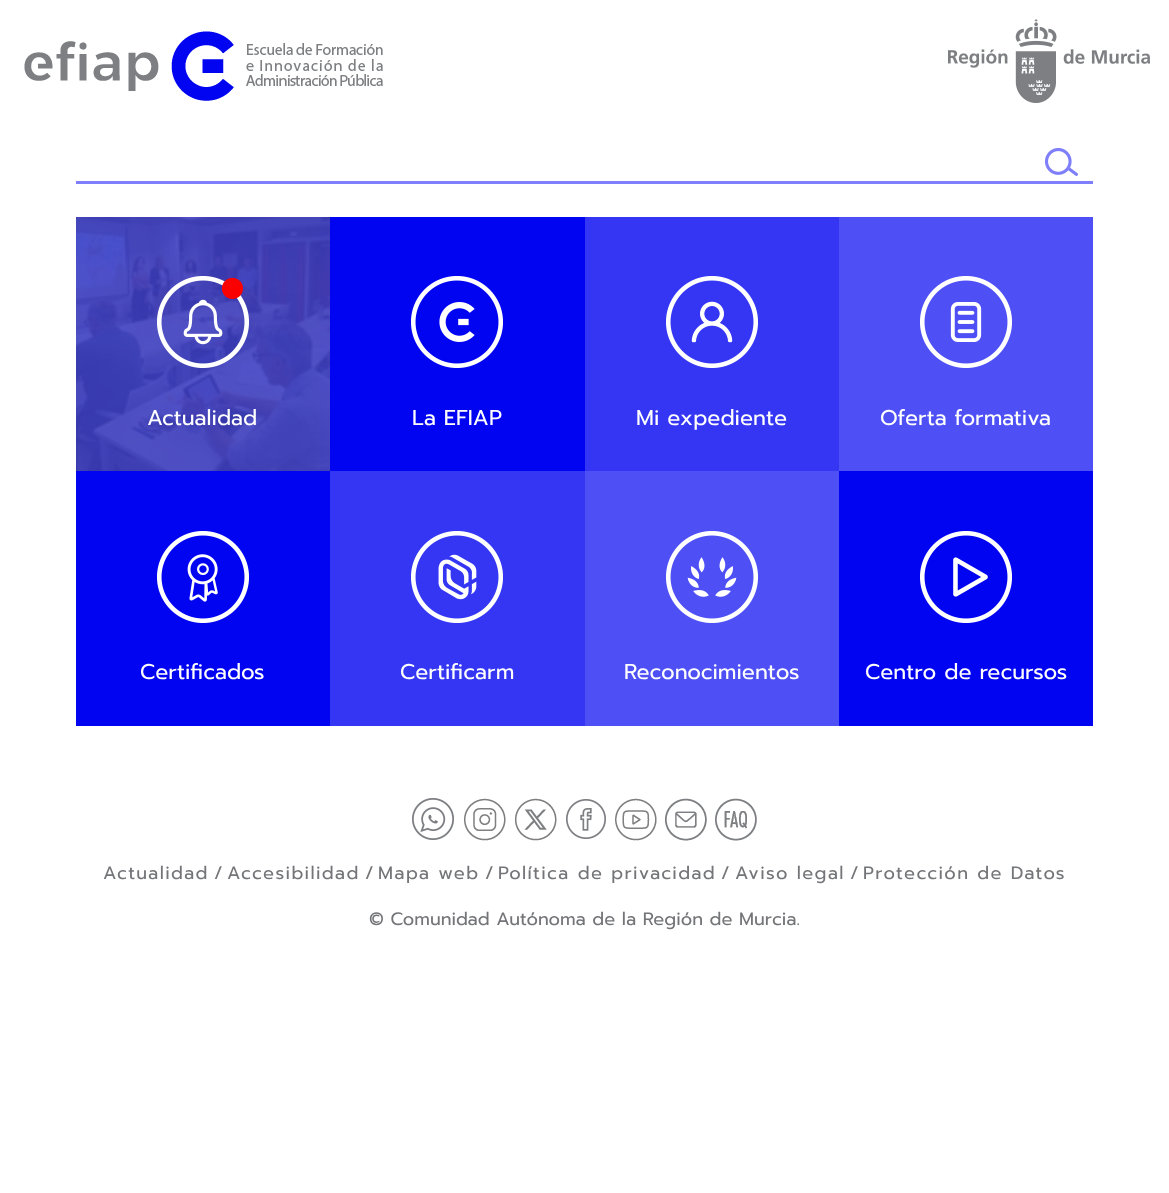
<!DOCTYPE html>
<meta charset="utf-8">
<style>body { margin: 0 } canvas { display: block }</style>
<canvas id="canvas" width="1169" height="1193"></canvas>
<script type="module">
  const canvas = document.getElementById("canvas");
  const g = canvas.getContext("2d");
  g.miterLimit = 4;
  g.fontKerning = "normal";
  function drawText(s, x, y, [font, color]) {
    g.font = font;
    g.fillStyle = color;
    g.fillText(s, x, y);
  }
  function fillBox(x, y, w, h, color) {
    g.fillStyle = color;
    g.fillRect(x, y, w, h);
  }
  async function drawPicture(src, x, y, w, h) {
    const img = new Image();
    img.src = src;
    await img.decode();
    g.drawImage(img, x, y, w, h);
  }

  const s1 = ["21.5px Prompt", "#FFFFFF"];
  const s2 = ["18px Prompt", "#747578"];

  fillBox(0, 0, 1169, 1193, "#FFFFFF");
  await drawPicture("pic1.png", 24, 31, 359, 70);
  await drawPicture("pic2.png", 948, 19, 202, 84);
  fillBox(76, 181, 1017, 3, "#7F7FFB");
  await drawPicture("pic3.png", 1045, 148, 33, 28);
  fillBox(76, 217, 254, 254, "#4E50F6");
  await drawPicture("pic4.png", 76, 217, 254, 254);
  await drawPicture("pic5.png", 157, 276, 92, 92);
  drawText("Actualidad", 147, 425, s1);
  fillBox(330, 217, 255, 254, "#0104F1");
  await drawPicture("pic6.png", 411, 276, 92, 92);
  drawText("La EFIAP", 412, 425, s1);
  fillBox(585, 217, 254, 254, "#3436F4");
  await drawPicture("pic7.png", 666, 276, 92, 92);
  drawText("Mi expediente", 636, 425, s1);
  fillBox(839, 217, 254, 254, "#4E50F6");
  await drawPicture("pic8.png", 920, 276, 92, 92);
  drawText("Oferta formativa", 880, 425, s1);
  fillBox(76, 471, 254, 255, "#0104F1");
  await drawPicture("pic9.png", 157, 531, 92, 92);
  drawText("Certificados", 140, 679, s1);
  fillBox(330, 471, 255, 255, "#3436F4");
  await drawPicture("pic10.png", 411, 531, 92, 92);
  drawText("Certificarm", 400, 679, s1);
  fillBox(585, 471, 254, 255, "#4E50F6");
  await drawPicture("pic11.png", 666, 531, 92, 92);
  drawText("Reconocimientos", 624, 679, s1);
  fillBox(839, 471, 254, 255, "#0104F1");
  await drawPicture("pic12.png", 920, 531, 92, 92);
  drawText("Centro de recursos", 865, 679, s1);
  await drawPicture("pic13.png", 412, 798, 42, 42);
  await drawPicture("pic14.png", 464, 798, 42, 43);
  await drawPicture("pic15.png", 515, 798, 42, 43);
  await drawPicture("pic16.png", 566, 799, 40, 40);
  await drawPicture("pic17.png", 615, 798, 42, 43);
  await drawPicture("pic18.png", 665, 798, 42, 43);
  await drawPicture("pic19.png", 715, 798, 42, 43);
  g.letterSpacing = "1.35px";
  drawText("Actualidad", 103, 879, s2);
  g.letterSpacing = "0px";
  drawText("/", 214, 879, s2);
  g.letterSpacing = "1.35px";
  drawText("Accesibilidad", 227, 879, s2);
  g.letterSpacing = "0px";
  drawText("/", 365, 879, s2);
  g.letterSpacing = "1.35px";
  drawText("Mapa web", 378, 879, s2);
  g.letterSpacing = "0px";
  drawText("/", 485, 879, s2);
  g.letterSpacing = "1.35px";
  drawText("Política de privacidad", 498, 879, s2);
  g.letterSpacing = "0px";
  drawText("/", 721, 879, s2);
  g.letterSpacing = "1.35px";
  drawText("Aviso legal", 735, 879, s2);
  g.letterSpacing = "0px";
  drawText("/", 850, 879, s2);
  g.letterSpacing = "1.35px";
  drawText("Protección de Datos", 863, 879, s2);
  g.letterSpacing = "0px";
  drawText("© Comunidad Autónoma de la Región de Murcia.", 369, 925, s2);
</script>
